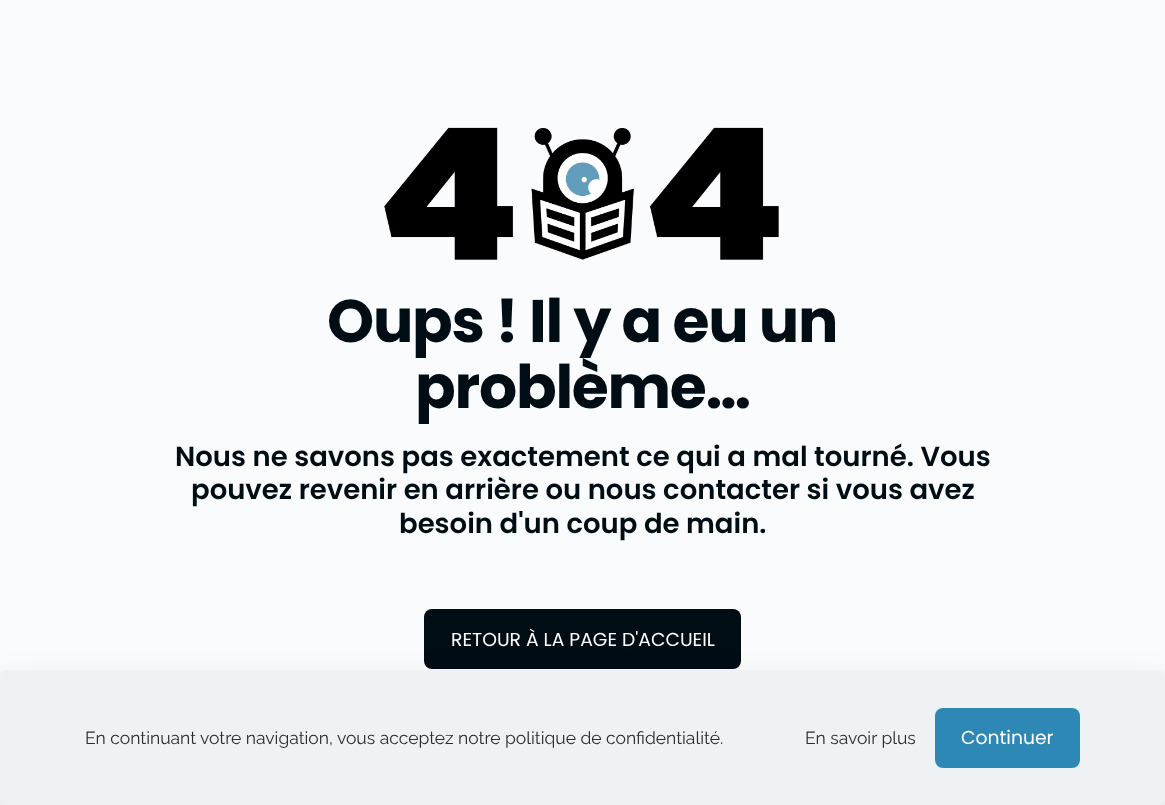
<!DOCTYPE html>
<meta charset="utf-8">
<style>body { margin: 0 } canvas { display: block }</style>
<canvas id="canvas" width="1165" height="805"></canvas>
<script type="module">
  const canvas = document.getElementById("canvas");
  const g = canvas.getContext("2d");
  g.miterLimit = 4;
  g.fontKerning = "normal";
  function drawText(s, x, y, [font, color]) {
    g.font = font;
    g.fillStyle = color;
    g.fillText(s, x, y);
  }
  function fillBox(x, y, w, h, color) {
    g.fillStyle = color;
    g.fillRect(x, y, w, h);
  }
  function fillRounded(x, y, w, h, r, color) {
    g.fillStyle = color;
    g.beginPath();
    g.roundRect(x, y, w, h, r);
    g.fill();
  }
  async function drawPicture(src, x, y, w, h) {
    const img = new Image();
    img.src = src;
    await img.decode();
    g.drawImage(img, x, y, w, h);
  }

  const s1 = ["bold 60px Poppins", "#000D14"];
  const s2 = ["600 27.5px Poppins", "#000D14"];
  const s3 = ["18.75px Poppins", "#FFFFFF"];
  const s4 = ["17.5px Raleway", "#272E31"];

  fillBox(0, 0, 1165, 805, "#F9FBFC");
  await drawPicture("pic1.png", 384, 127, 395, 133);
  g.letterSpacing = "-1.25px";
  drawText("Oups ! Il y a eu un", 327, 342, s1);
  drawText("problème…", 415, 408, s1);
  g.letterSpacing = "0px";
  drawText("Nous ne savons pas exactement ce qui a mal tourné. Vous", 175, 466, s2);
  drawText("pouvez revenir en arrière ou nous contacter si vous avez", 191, 499, s2);
  drawText("besoin d'un coup de main.", 399, 533, s2);
  fillRounded(424, 609, 317, 60, 8, "#000D14");
  drawText("RETOUR À LA PAGE D'ACCUEIL", 451, 646, s3);
  g.fillStyle = "rgba(1, 7, 39, 0.13)";
  g.filter = "blur(19px)";
  g.beginPath();
  g.roundRect(0, 689, 1165, 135, 6);
  g.fill();
  g.filter = "none";
  fillRounded(0, 670, 1165, 135, 6, "#EEF2F5");
  drawText("En continuant votre navigation, vous acceptez notre politique de confidentialité.", 85, 744, s4);
  drawText("En savoir plus", 805, 744, s4);
  fillRounded(935, 708, 145, 60, 8, "#2E88B5");
  drawText("Continuer", 961, 744, s3);
</script>
